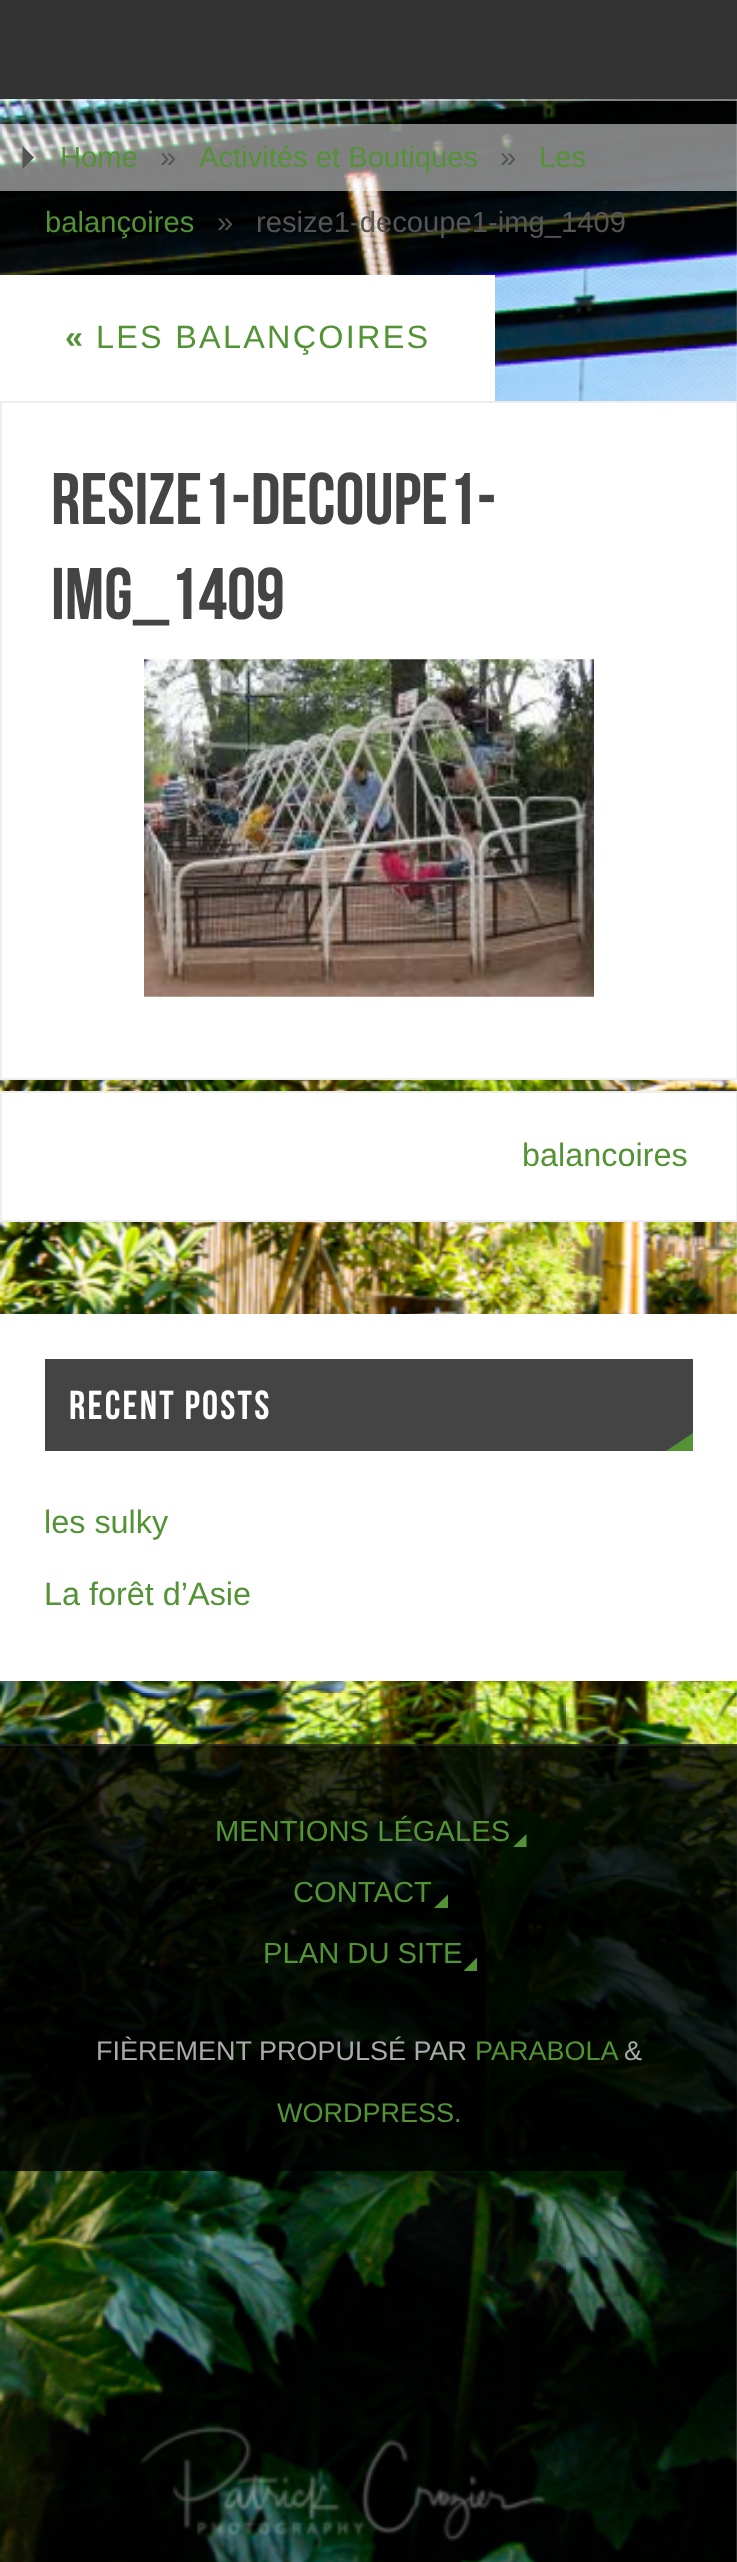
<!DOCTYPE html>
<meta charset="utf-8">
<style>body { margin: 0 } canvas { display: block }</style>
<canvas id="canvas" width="737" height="2562"></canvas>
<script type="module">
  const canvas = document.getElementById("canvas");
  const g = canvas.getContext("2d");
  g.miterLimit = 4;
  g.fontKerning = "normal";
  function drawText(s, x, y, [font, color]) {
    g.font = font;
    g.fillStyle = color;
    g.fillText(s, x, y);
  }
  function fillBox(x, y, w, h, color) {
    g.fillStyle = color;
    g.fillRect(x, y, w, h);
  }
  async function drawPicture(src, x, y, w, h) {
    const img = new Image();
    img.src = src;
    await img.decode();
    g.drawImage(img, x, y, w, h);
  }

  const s1 = ["29.2px Liberation Sans", "#539335"];
  const s2 = ["29.2px Liberation Sans", "#555555"];
  const s3 = ["bold 32.4px Liberation Sans", "#539335"];
  const s4 = ["32.4px Liberation Sans", "#539335"];
  const s5 = ["73px Bebas Neue", "#444444"];
  const s6 = ["40.5px Bebas Neue", "#FFFFFF"];
  const s7 = ["27px Liberation Sans", "#AAAAAA"];
  const s8 = ["27px Liberation Sans", "#539335"];

  fillBox(0, 0, 737, 2562, "#FFFFFF");
  await drawPicture("pic1.png", 0, 99, 737, 2463);
  fillBox(0, 99, 737, 2, "rgba(255, 255, 255, 0.5)");
  fillBox(0, 0, 737, 99, "#333333");
  fillBox(0, 124, 737, 67, "rgba(255, 255, 255, 0.5)");
  g.fillStyle = "#555555";
  g.beginPath();
  g.moveTo(22.5, 169);
  g.lineTo(22.5, 146);
  g.lineTo(34, 157.5);
  g.closePath();
  g.fill();
  drawText("Home", 60, 167, s1);
  drawText("»", 160, 167, s2);
  drawText("Activités et Boutiques", 199, 167, s1);
  drawText("»", 500, 167, s2);
  drawText("Les", 539, 167, s1);
  drawText("balançoires", 45, 232, s1);
  drawText("»", 217, 232, s2);
  drawText("resize1-decoupe1-img_1409", 256, 232, s2);
  fillBox(0, 275, 495, 126, "#FFFFFF");
  g.letterSpacing = "2.25px";
  drawText("«", 65, 348, s3);
  drawText("LES BALANÇOIRES", 96, 348, s4);
  g.fillStyle = "#FFFFFF";
  g.beginPath();
  g.rect(1, 402, 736, 677);
  g.fill();
  g.strokeStyle = "#EEEEEE";
  g.lineWidth = 2;
  g.stroke();
  g.letterSpacing = "0px";
  drawText("resize1-decoupe1-", 51, 524, s5);
  drawText("img_1409", 51, 619, s5);
  await drawPicture("pic2.png", 144, 659, 450, 338);
  g.fillStyle = "#FFFFFF";
  g.beginPath();
  g.rect(1, 1092, 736, 129);
  g.fill();
  g.stroke();
  drawText("balancoires", 522, 1166, s4);
  fillBox(0, 1314, 737, 367, "#FFFFFF");
  fillBox(45, 1359, 648, 92, "#444444");
  g.letterSpacing = "2.25px";
  drawText("RECENT POSTS", 69, 1419, s6);
  g.fillStyle = "#539335";
  g.beginPath();
  g.moveTo(693, 1451);
  g.lineTo(666, 1451);
  g.lineTo(693, 1433);
  g.closePath();
  g.fill();
  g.letterSpacing = "0px";
  drawText("les sulky", 44, 1533, s4);
  drawText("La forêt d’Asie", 44, 1605, s4);
  fillBox(0, 1744, 737, 427, "rgba(0, 0, 0, 0.8)");
  fillBox(0, 1744, 737, 2, "rgba(255, 255, 255, 0.1)");
  drawText("MENTIONS LÉGALES", 215, 1841, s1);
  g.beginPath();
  g.moveTo(526.5, 1847);
  g.lineTo(513, 1847);
  g.lineTo(526.5, 1834);
  g.closePath();
  g.fill();
  drawText("CONTACT", 293, 1902, s1);
  g.beginPath();
  g.moveTo(448, 1908);
  g.lineTo(434, 1908);
  g.lineTo(448, 1894.5);
  g.closePath();
  g.fill();
  drawText("PLAN DU SITE", 263, 1963, s1);
  g.beginPath();
  g.moveTo(477, 1971);
  g.lineTo(463.5, 1971);
  g.lineTo(477, 1957.5);
  g.closePath();
  g.fill();
  drawText("FIÈREMENT PROPULSÉ PAR", 96, 2060, s7);
  drawText("PARABOLA", 475, 2060, s8);
  drawText("&", 624, 2060, s7);
  drawText("WORDPRESS.", 277, 2122, s8);
</script>
